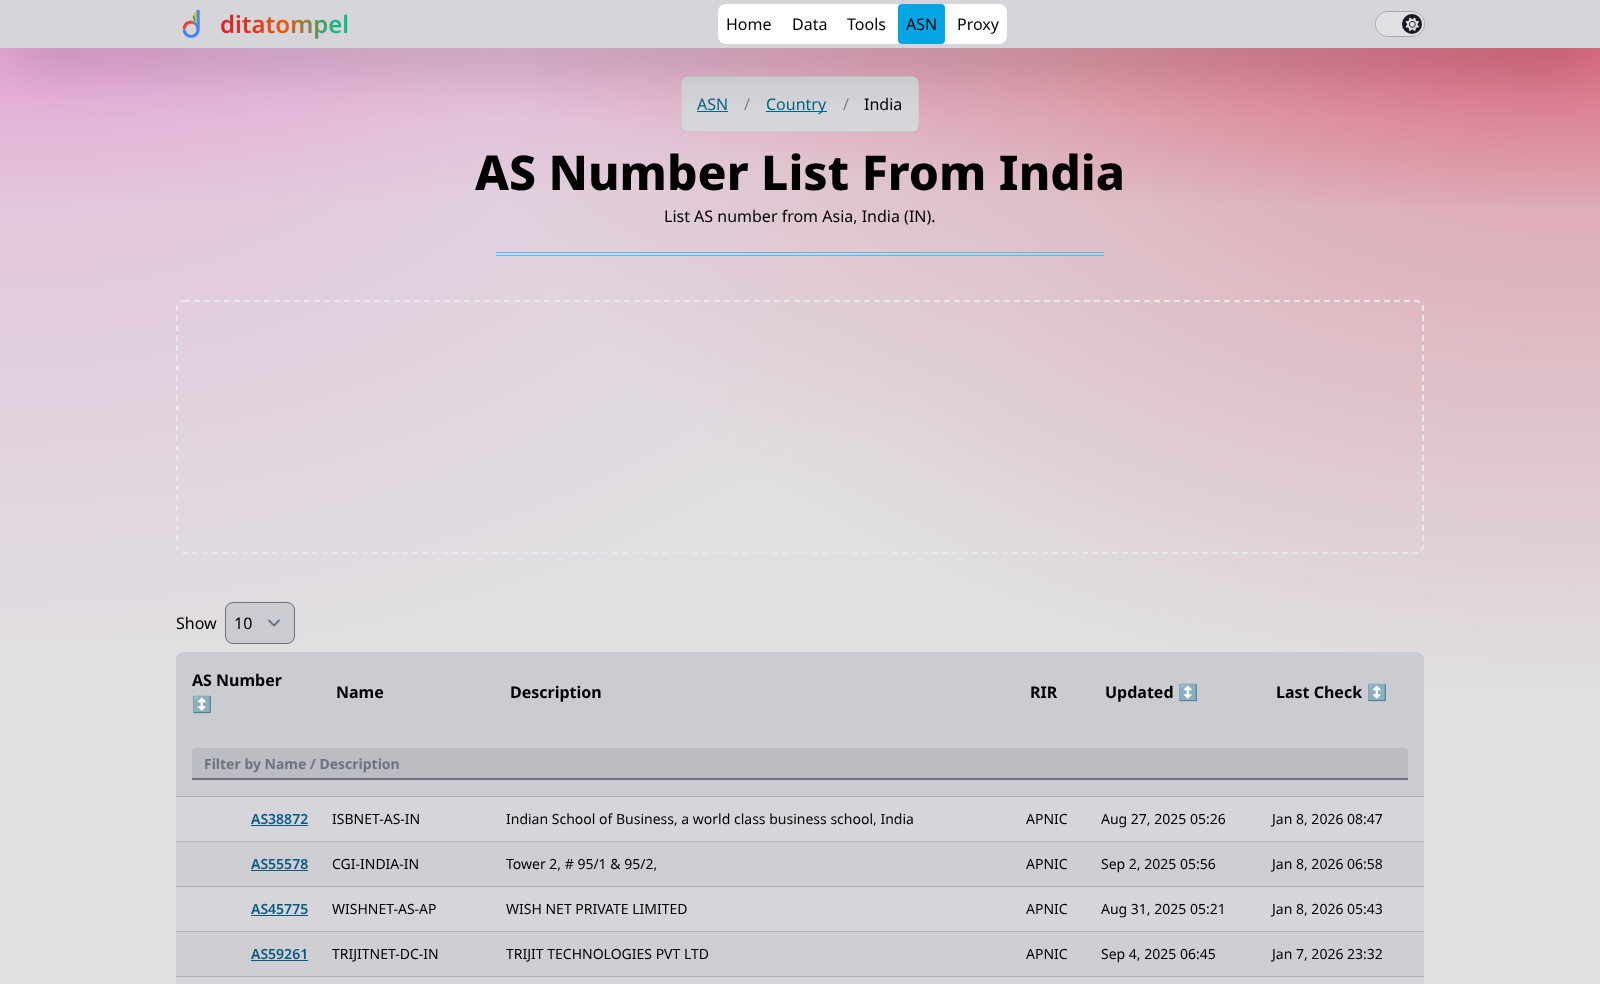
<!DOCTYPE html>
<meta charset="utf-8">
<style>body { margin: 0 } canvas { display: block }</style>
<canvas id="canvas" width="1600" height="984"></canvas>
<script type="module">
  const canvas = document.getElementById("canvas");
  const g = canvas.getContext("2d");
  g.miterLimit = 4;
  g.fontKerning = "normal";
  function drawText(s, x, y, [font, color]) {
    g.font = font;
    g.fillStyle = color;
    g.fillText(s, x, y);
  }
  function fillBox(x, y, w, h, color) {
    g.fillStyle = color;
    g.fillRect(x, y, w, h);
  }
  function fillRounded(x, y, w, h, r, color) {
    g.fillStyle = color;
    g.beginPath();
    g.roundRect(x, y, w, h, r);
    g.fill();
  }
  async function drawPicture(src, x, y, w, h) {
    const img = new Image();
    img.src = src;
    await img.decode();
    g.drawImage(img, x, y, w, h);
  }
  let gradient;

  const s1 = ["16px Noto Sans", "#000000"];
  const s2 = ["16px Noto Sans", "#026389"];
  const s3 = ["16px Noto Sans", "#7D7F88"];
  const s4 = ["800 48px Noto Sans", "#000000"];
  const s5 = ["bold 16px Noto Sans", "#000000"];
  const s6 = ["bold 16px Noto Color Emoji", "#000000"];
  const s7 = ["bold 14px Noto Sans", "#6B7280"];
  const s8 = ["600 14px Noto Sans", "#075985"];
  const s9 = ["14px Noto Sans", "#000000"];

  fillBox(0, 0, 1600, 984, "#FFFFFF");
  gradient = g.createRadialGradient(1568, 16.09, 0, 1568, 16.09, 2217);
  gradient.addColorStop(0, "#DD99A8");
  gradient.addColorStop(0.5, "#E0E0E1");
  g.fillStyle = gradient;
  g.beginPath();
  g.rect(0, 48, 1600, 936);
  g.save();
  g.clip();
  g.scale(1, 1378 / 2217);
  g.fillRect(0, 0, 1600, 1584);
  g.restore();
  gradient = g.createRadialGradient(0, 0, 0, 0, 0, 2263);
  gradient.addColorStop(0, "rgba(234, 118, 203, 0.33)");
  gradient.addColorStop(0.5, "rgba(234, 118, 203, 0)");
  g.fillStyle = gradient;
  g.beginPath();
  g.rect(0, 48, 1027, 595);
  g.save();
  g.clip();
  g.scale(1, 1392 / 2263);
  g.fillRect(0, 0, 1600, 1600);
  g.restore();
  gradient = g.createRadialGradient(1568, 335.91, 0, 1568, 335.91, 2217);
  gradient.addColorStop(0, "rgba(215, 9, 54, 0.33)");
  gradient.addColorStop(0.5, "rgba(215, 9, 54, 0)");
  g.fillStyle = gradient;
  g.beginPath();
  g.rect(536, 48, 1064, 156);
  g.save();
  g.clip();
  g.scale(1, 330 / 2217);
  g.fillRect(0, 0, 1600, 6611);
  g.restore();
  gradient = g.createRadialGradient(0, 325.22, 0, 0, 325.22, 2263);
  gradient.addColorStop(0, "rgba(234, 118, 203, 0.33)");
  gradient.addColorStop(0.5, "rgba(234, 118, 203, 0)");
  g.fillStyle = gradient;
  g.beginPath();
  g.rect(0, 48, 966, 152);
  g.save();
  g.clip();
  g.scale(1, 334 / 2263);
  g.fillRect(0, 0, 1600, 6668);
  g.restore();
  fillRounded(681, 76, 238, 56, 8, "#D6D6DA");
  g.strokeStyle = "rgba(23, 23, 23, 0.05)";
  g.strokeRect(681.5, 76.5, 237, 55);
  fillBox(697, 111, 31, 1, "#026389");
  fillBox(766, 111, 61, 1, "#026389");
  g.fillStyle = "rgba(0, 0, 0, 0.25)";
  g.filter = "blur(25px)";
  g.beginPath();
  g.rect(12, 37, 1576, 24);
  g.fill();
  g.filter = "none";
  fillBox(0, 0, 1600, 48, "#D6D6DA");
  await drawPicture("pic1.png", 182, 9, 18, 29);
  g.font = "600 24px Noto Sans";
  gradient = g.createLinearGradient(220, 24, 349, 24);
  gradient.addColorStop(0.1, "#DC2626");
  gradient.addColorStop(0.5, "#EA580C");
  gradient.addColorStop(0.9, "#10B981");
  g.fillStyle = gradient;
  g.fillText("ditatompel", 220, 33);
  fillRounded(718, 4, 289, 40, 8, "#FFFFFF");
  drawText("Home", 726, 30, s1);
  drawText("Data", 792, 30, s1);
  drawText("Tools", 847, 30, s1);
  fillRounded(898, 4, 47, 40, 4, "#04A5E5");
  drawText("ASN", 906, 30, s1);
  drawText("Proxy", 957, 30, s1);
  g.beginPath();
  g.roundRect(1375.5, 11.5, 49, 25, 12.5);
  g.strokeStyle = "#A4A5AE";
  g.stroke();
  fillRounded(1376, 12, 48, 24, 12, "#E0E1E3");
  g.fillStyle = "#181922";
  g.beginPath();
  g.arc(1412, 24, 10, 0, Math.PI * 2);
  g.fill();
  await drawPicture("pic2.png", 1405, 17, 14, 14);
  drawText("ASN", 697, 110, s2);
  drawText("/", 744, 110, s3);
  drawText("Country", 766, 110, s2);
  drawText("/", 843, 110, s3);
  drawText("India", 864, 110, s1);
  drawText("AS Number List From India", 475, 190, s4);
  drawText("List AS number from Asia, India (IN).", 664, 222, s1);
  fillBox(496, 252, 608, 1, "#4FC0ED");
  fillBox(496, 255, 608, 1, "#4FC0ED");
  g.beginPath();
  g.moveTo(184, 301);
  g.lineTo(1416, 301);
  g.bezierCurveTo(1420, 301, 1423, 304, 1423, 308);
  g.lineTo(1423, 546);
  g.bezierCurveTo(1423, 550, 1420, 553, 1416, 553);
  g.lineTo(184, 553);
  g.bezierCurveTo(180, 553, 177, 550, 177, 546);
  g.lineTo(177, 308);
  g.bezierCurveTo(177, 304, 180, 301, 184, 301);
  g.closePath();
  g.strokeStyle = "#E5E7EB";
  g.lineWidth = 2;
  g.setLineDash([6, 4]);
  g.stroke();
  drawText("Show", 176, 629, s1);
  fillRounded(225, 602, 70, 42, 8, "#CBCCD1");
  g.beginPath();
  g.moveTo(269, 620.5);
  g.lineTo(274, 625.5);
  g.lineTo(279, 620.5);
  g.strokeStyle = "#6B7280";
  g.lineWidth = 1.8;
  g.lineCap = "round";
  g.lineJoin = "round";
  g.setLineDash([]);
  g.stroke();
  g.beginPath();
  g.roundRect(225.5, 602.5, 69, 41, 7.5);
  g.strokeStyle = "#6E717E";
  g.lineWidth = 1;
  g.lineJoin = "miter";
  g.stroke();
  drawText("10", 234, 629, s1);
  fillRounded(176, 652, 1248, 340, 8, "#D6D6DA");
  g.fillStyle = "#CBCCD1";
  g.beginPath();
  g.roundRect(176, 652, 1248, 145, [8, 8, 0, 0]);
  g.fill();
  fillBox(176, 796, 1248, 1, "#ACAEB5");
  drawText("AS Number", 192, 686, s5);
  drawText("↕️", 192, 710, s6);
  drawText("Name", 336, 698, s5);
  drawText("Description", 510, 698, s5);
  drawText("RIR", 1030, 698, s5);
  drawText("Updated", 1105, 698, s5);
  drawText("↕️", 1178, 698, s6);
  drawText("Last Check", 1276, 698, s5);
  drawText("↕️", 1367, 698, s6);
  g.fillStyle = "#BCBDC3";
  g.beginPath();
  g.roundRect(192, 748, 1216, 30, [4, 4, 0, 0]);
  g.fill();
  fillBox(192, 778, 1216, 2, "#6E717E");
  drawText("Filter by Name / Description", 204, 769, s7);
  fillBox(176, 841, 1248, 1, "#B5B6BC");
  drawText("AS38872", 251, 824, s8);
  fillBox(251, 825, 57, 1, "#075985");
  drawText("ISBNET-AS-IN", 332, 824, s9);
  drawText("Indian School of Business, a world class business school, India", 506, 824, s9);
  drawText("APNIC", 1026, 824, s9);
  drawText("Aug 27, 2025 05:26", 1101, 824, s9);
  drawText("Jan 8, 2026 08:47", 1272, 824, s9);
  fillBox(176, 842, 1248, 44, "#CECED3");
  fillBox(176, 886, 1248, 1, "#AEAFB7");
  drawText("AS55578", 251, 869, s8);
  fillBox(251, 870, 57, 1, "#075985");
  drawText("CGI-INDIA-IN", 332, 869, s9);
  drawText("Tower 2, # 95/1 & 95/2,", 506, 869, s9);
  drawText("APNIC", 1026, 869, s9);
  drawText("Sep 2, 2025 05:56", 1101, 869, s9);
  drawText("Jan 8, 2026 06:58", 1272, 869, s9);
  fillBox(176, 931, 1248, 1, "#B5B6BC");
  drawText("AS45775", 251, 914, s8);
  fillBox(251, 915, 57, 1, "#075985");
  drawText("WISHNET-AS-AP", 332, 914, s9);
  drawText("WISH NET PRIVATE LIMITED", 506, 914, s9);
  drawText("APNIC", 1026, 914, s9);
  drawText("Aug 31, 2025 05:21", 1101, 914, s9);
  drawText("Jan 8, 2026 05:43", 1272, 914, s9);
  fillBox(176, 932, 1248, 44, "#CECED3");
  fillBox(176, 976, 1248, 1, "#AEAFB7");
  drawText("AS59261", 251, 959, s8);
  fillBox(251, 960, 57, 1, "#075985");
  drawText("TRIJITNET-DC-IN", 332, 959, s9);
  drawText("TRIJIT TECHNOLOGIES PVT LTD", 506, 959, s9);
  drawText("APNIC", 1026, 959, s9);
  drawText("Sep 4, 2025 06:45", 1101, 959, s9);
  drawText("Jan 7, 2026 23:32", 1272, 959, s9);
</script>
